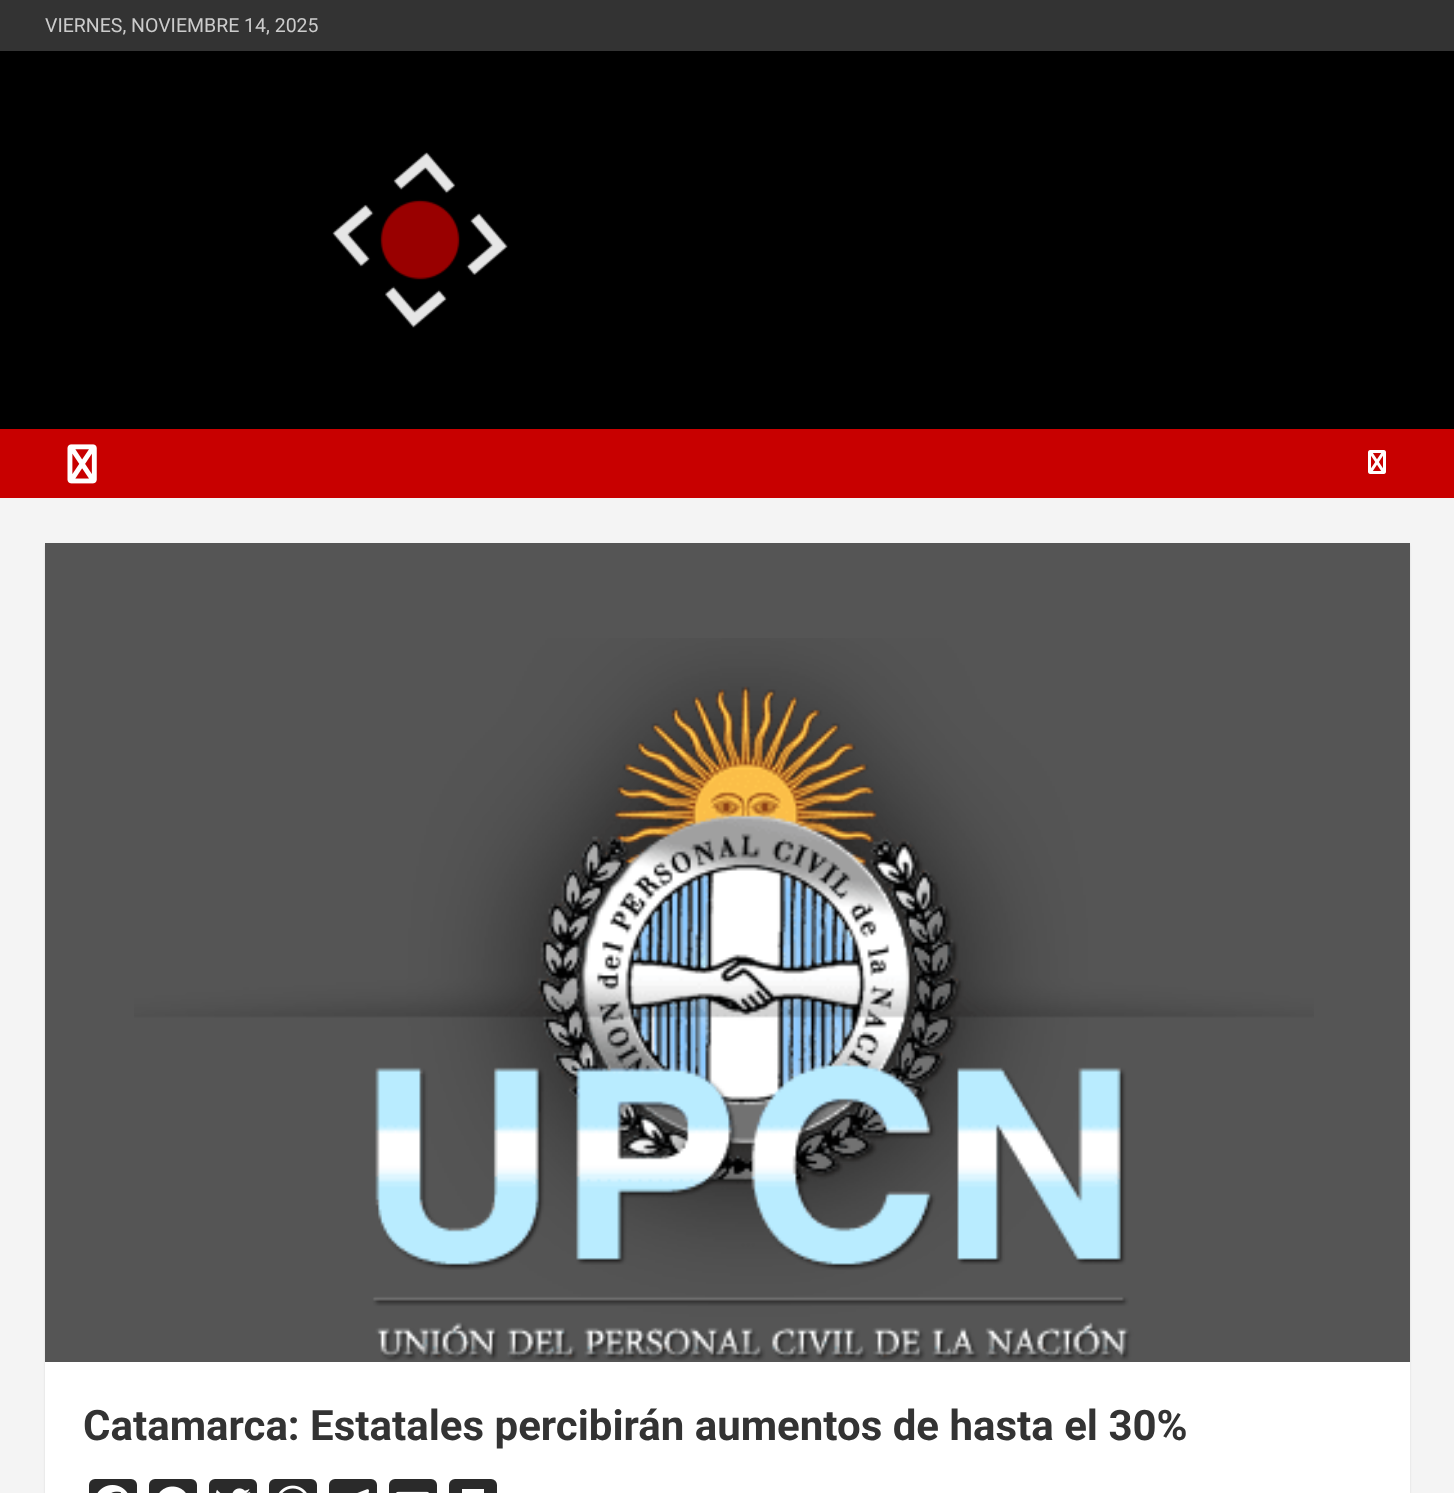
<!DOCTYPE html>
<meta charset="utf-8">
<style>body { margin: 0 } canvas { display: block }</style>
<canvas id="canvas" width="1454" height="1493"></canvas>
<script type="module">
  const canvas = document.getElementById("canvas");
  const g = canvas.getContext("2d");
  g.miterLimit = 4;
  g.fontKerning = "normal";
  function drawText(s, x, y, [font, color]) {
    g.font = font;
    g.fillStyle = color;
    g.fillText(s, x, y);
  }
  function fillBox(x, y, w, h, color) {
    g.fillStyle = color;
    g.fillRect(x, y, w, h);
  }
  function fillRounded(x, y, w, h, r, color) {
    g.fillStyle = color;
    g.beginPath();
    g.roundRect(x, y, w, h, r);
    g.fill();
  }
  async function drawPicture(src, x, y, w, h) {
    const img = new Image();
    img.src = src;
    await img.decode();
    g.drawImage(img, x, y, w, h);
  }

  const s1 = ["19.5px Roboto", "#CCCCCC"];
  const s2 = ["bold 42px Roboto", "#333333"];

  fillBox(0, 0, 1454, 1493, "#F4F4F4");
  fillBox(0, 0, 1454, 51, "#333333");
  drawText("VIERNES, NOVIEMBRE 14, 2025", 45, 32, s1);
  fillBox(0, 51, 1454, 378, "#000000");
  await drawPicture("pic1.png", 332, 152, 176, 176);
  fillBox(0, 429, 1454, 69, "#C80000");
  await drawPicture("pic2.png", 67, 444, 30, 40);
  await drawPicture("pic3.png", 1368, 450, 18, 24);
  g.fillStyle = "rgba(0, 0, 0, 0.1)";
  g.filter = "blur(1px)";
  g.beginPath();
  g.rect(45, 545, 1365, 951);
  g.fill();
  g.filter = "none";
  fillBox(45, 1362, 1365, 131, "#FFFFFF");
  fillBox(45, 543, 1365, 819, "#555555");
  await drawPicture("pic4.png", 134, 638, 1180, 723);
  drawText("Catamarca: Estatales percibirán aumentos de hasta el 30%", 83, 1440, s2);
  fillRounded(89, 1479, 48, 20, 6, "#2A2A2A");
  await drawPicture("pic5.png", 97, 1485, 31, 8);
  fillRounded(149, 1479, 48, 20, 6, "#2A2A2A");
  await drawPicture("pic6.png", 159, 1486, 27, 7);
  fillRounded(209, 1479, 48, 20, 6, "#2A2A2A");
  await drawPicture("pic7.png", 216, 1488, 35, 5);
  fillRounded(269, 1479, 48, 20, 6, "#2A2A2A");
  await drawPicture("pic8.png", 278, 1485, 29, 8);
  fillRounded(329, 1479, 48, 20, 6, "#2A2A2A");
  await drawPicture("pic9.png", 357, 1489, 12, 4);
  fillRounded(389, 1479, 48, 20, 6, "#2A2A2A");
  await drawPicture("pic10.png", 396, 1491, 33, 2);
  fillRounded(449, 1479, 48, 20, 6, "#2A2A2A");
  fillBox(462, 1489, 22, 4, "#FFFFFF");
</script>
